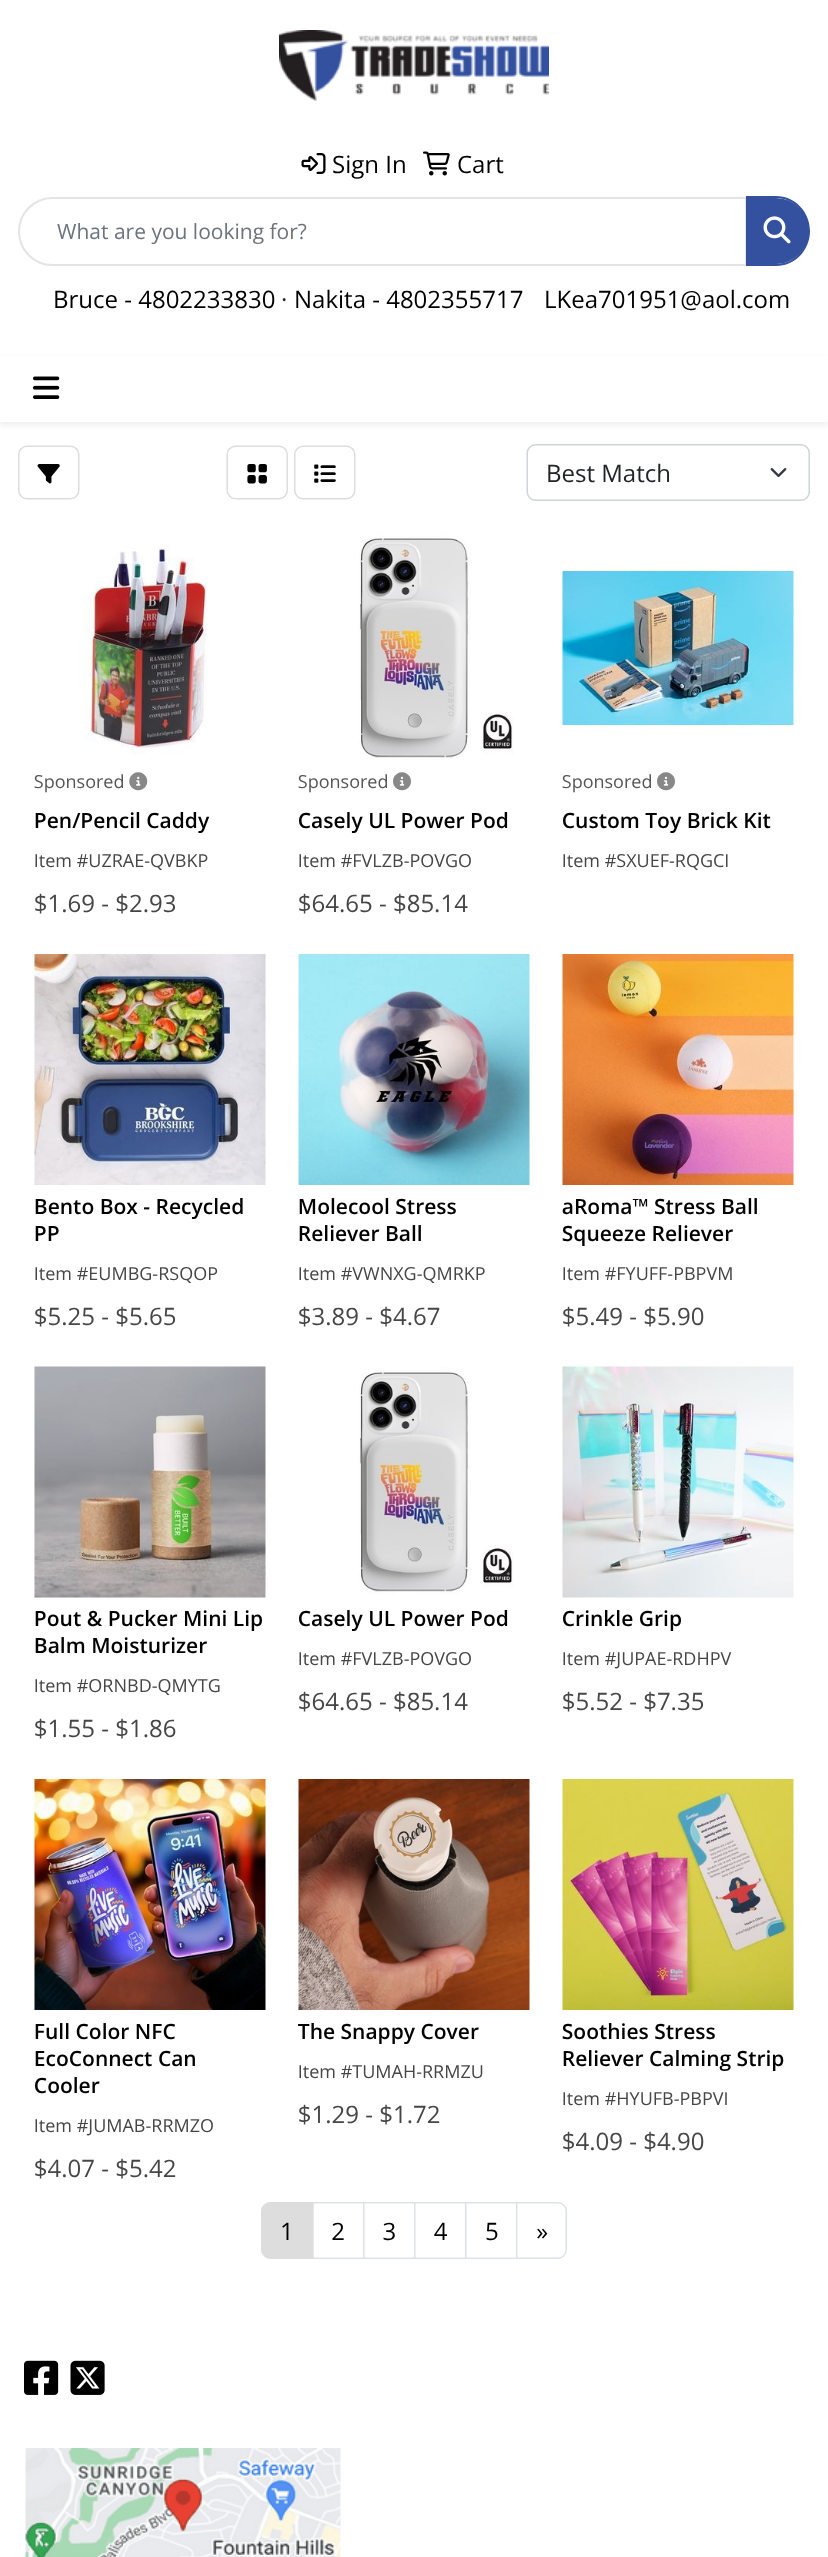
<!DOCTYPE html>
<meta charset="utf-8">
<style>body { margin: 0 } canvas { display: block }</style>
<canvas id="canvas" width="828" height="2557"></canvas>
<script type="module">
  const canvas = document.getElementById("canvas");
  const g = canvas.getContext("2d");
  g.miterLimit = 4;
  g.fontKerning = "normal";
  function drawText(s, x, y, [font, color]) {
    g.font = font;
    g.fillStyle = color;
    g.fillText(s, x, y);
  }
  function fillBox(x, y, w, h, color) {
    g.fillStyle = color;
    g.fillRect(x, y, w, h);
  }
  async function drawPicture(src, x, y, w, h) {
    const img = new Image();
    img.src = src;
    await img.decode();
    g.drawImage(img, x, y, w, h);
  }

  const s1 = ["24px Open Sans", "#000000"];
  const s2 = ["21px Open Sans", "#6C757D"];
  const s3 = ["24px Open Sans", "#212529"];

  fillBox(0, 0, 828, 2557, "#FFFFFF");
  await drawPicture("pic1.png", 279, 30, 270, 71);
  await drawPicture("pic2.png", 301, 153, 25, 21);
  drawText("Sign In", 332, 173, s1);
  await drawPicture("pic3.png", 423, 151, 27, 25);
  drawText("Cart", 457, 173, s1);
  g.beginPath();
  g.roundRect(19, 198, 727, 67, [33.5, 0, 0, 33.5]);
  g.strokeStyle = "#E4E4E4";
  g.lineWidth = 2;
  g.stroke();
  drawText("What are you looking for?", 57, 239, s2);
  g.fillStyle = "#33519F";
  g.beginPath();
  g.roundRect(746, 198, 63, 66, [0, 33, 33, 0]);
  g.fill();
  g.beginPath();
  g.moveTo(746, 196);
  g.lineTo(776, 196);
  g.bezierCurveTo(795, 196, 810, 212, 810, 231);
  g.bezierCurveTo(810, 250, 795, 266, 776, 266);
  g.lineTo(746, 266);
  g.closePath();
  g.moveTo(746, 198);
  g.lineTo(776, 198);
  g.bezierCurveTo(794, 198, 808, 213, 808, 231);
  g.bezierCurveTo(808, 249, 794, 264, 776, 264);
  g.lineTo(746, 264);
  g.closePath();
  g.fill("evenodd");
  await drawPicture("pic4.png", 763, 216, 28, 28);
  drawText("Bruce - 4802233830", 53, 308, s1);
  drawText("·", 281, 308, s3);
  drawText("Nakita - 4802355717", 294, 308, s1);
  drawText("LKea701951@aol.com", 544, 308, s1);
  g.fillStyle = "rgba(0, 0, 0, 0.07)";
  g.filter = "blur(3px)";
  g.beginPath();
  g.rect(0, 359, 828, 66);
  g.fill();
  g.filter = "none";
  fillBox(0, 356, 828, 66, "#FFFFFF");
  await drawPicture("pic5.png", 33, 376, 27, 23);
  await drawPicture("pic6.png", 18, 444, 792, 1815);
  await drawPicture("pic7.png", 24, 2360, 35, 35);
  await drawPicture("pic8.png", 70, 2360, 35, 35);
  await drawPicture("pic9.png", 25, 2448, 316, 109);
</script>
